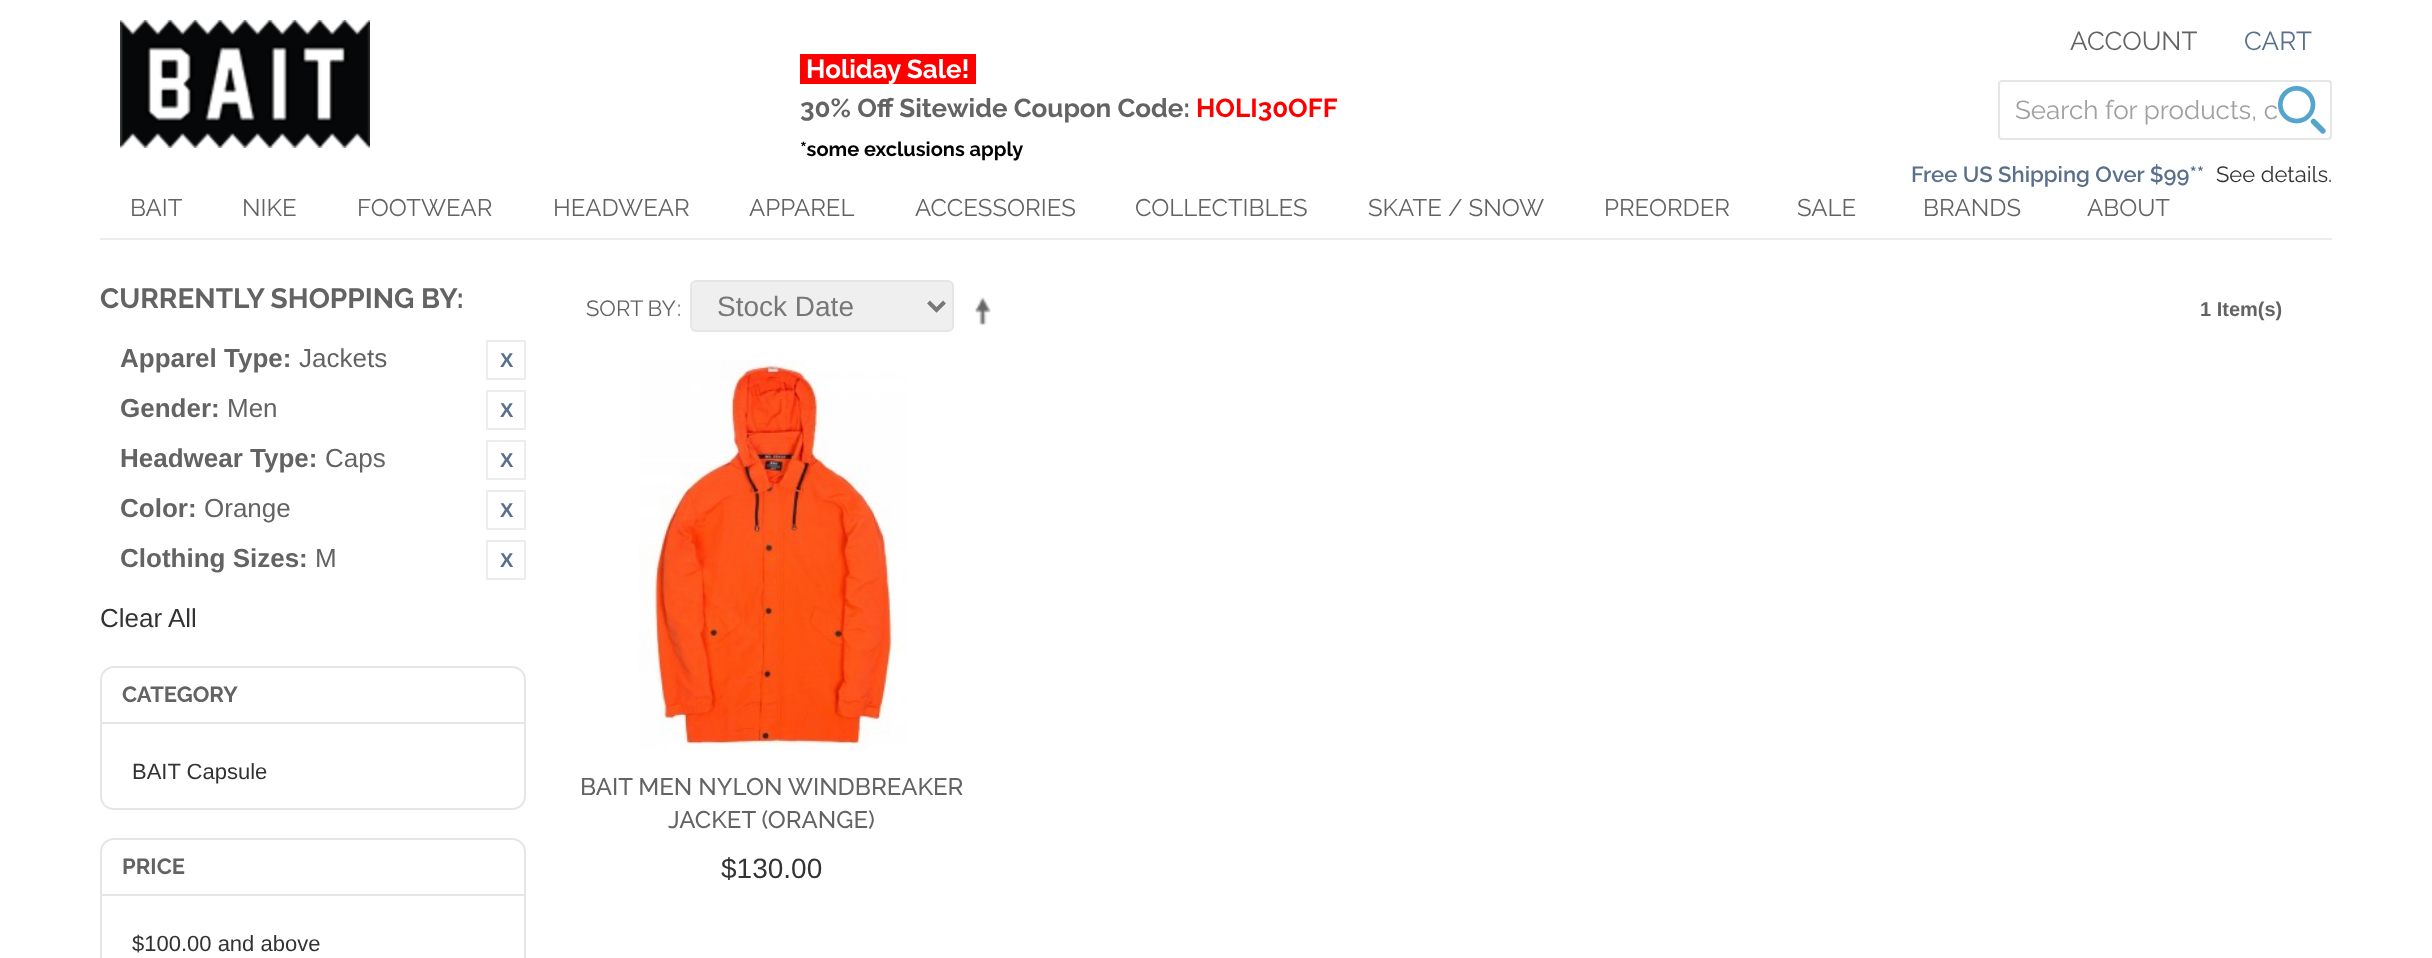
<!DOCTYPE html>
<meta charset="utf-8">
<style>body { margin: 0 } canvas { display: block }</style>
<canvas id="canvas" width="2432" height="958"></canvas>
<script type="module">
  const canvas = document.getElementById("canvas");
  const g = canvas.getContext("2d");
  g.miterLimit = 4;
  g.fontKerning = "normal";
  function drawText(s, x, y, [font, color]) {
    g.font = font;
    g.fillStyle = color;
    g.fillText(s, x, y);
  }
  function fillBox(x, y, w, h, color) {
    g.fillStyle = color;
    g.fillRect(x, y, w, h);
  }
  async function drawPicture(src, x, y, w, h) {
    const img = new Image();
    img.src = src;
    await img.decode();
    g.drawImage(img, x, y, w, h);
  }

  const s1 = ["26px Raleway", "#636363"];
  const s2 = ["26px Raleway", "#596F8C"];
  const s3 = ["bold 26px Raleway", "#FFFFFF"];
  const s4 = ["bold 26px Raleway", "#636363"];
  const s5 = ["bold 26px Raleway", "#FF0000"];
  const s6 = ["bold 20px Raleway", "#000000"];
  const s7 = ["600 22px Raleway", "#596F8C"];
  const s8 = ["22px Raleway", "#333333"];
  const s9 = ["26px Raleway", "#A0A0A0"];
  const s10 = ["24px Raleway", "#636363"];
  const s11 = ["bold 28px Raleway", "#636363"];
  const s12 = ["bold 26px Liberation Sans", "#636363"];
  const s13 = ["26px Liberation Sans", "#636363"];
  const s14 = ["bold 20px Liberation Sans", "#596F8C"];
  const s15 = ["26px Liberation Sans", "#333333"];
  const s16 = ["bold 22px Raleway", "#636363"];
  const s17 = ["22px Liberation Sans", "#333333"];
  const s18 = ["22px Raleway", "#636363"];
  const s19 = ["28px Liberation Sans", "#777777"];
  const s20 = ["bold 20px Liberation Sans", "#636363"];
  const s21 = ["500 24px Raleway", "#636363"];
  const s22 = ["28px Liberation Sans", "#333333"];

  fillBox(0, 0, 2432, 958, "#FFFFFF");
  await drawPicture("pic1.png", 120, 20, 250, 128);
  drawText("ACCOUNT", 2070, 50, s1);
  drawText("CART", 2244, 50, s2);
  fillBox(800, 54, 176, 30, "#FF0000");
  drawText("Holiday Sale!", 806, 78, s3);
  drawText("30% Off Sitewide Coupon Code:", 800, 117, s4);
  drawText("HOLI30OFF", 1196, 117, s5);
  drawText("*some exclusions apply", 800, 156, s6);
  drawText("Free US Shipping Over $99**", 1911, 182, s7);
  drawText("See details.", 2216, 182, s8);
  g.beginPath();
  g.roundRect(1999, 81, 332, 58, 3);
  g.strokeStyle = "#E6E6E6";
  g.lineWidth = 2;
  g.stroke();
  drawText("Search for products, c", 2015, 119, s9);
  await drawPicture("pic2.png", 2278, 86, 48, 48);
  fillBox(100, 238, 2232, 2, "#EDEDED");
  drawText("BAIT", 130, 216, s10);
  drawText("NIKE", 242, 216, s10);
  drawText("FOOTWEAR", 357, 216, s10);
  drawText("HEADWEAR", 553, 216, s10);
  drawText("APPAREL", 749, 216, s10);
  drawText("ACCESSORIES", 915, 216, s10);
  drawText("COLLECTIBLES", 1135, 216, s10);
  drawText("SKATE / SNOW", 1368, 216, s10);
  drawText("PREORDER", 1604, 216, s10);
  drawText("SALE", 1797, 216, s10);
  drawText("BRANDS", 1923, 216, s10);
  drawText("ABOUT", 2087, 216, s10);
  drawText("CURRENTLY SHOPPING BY:", 100, 308, s11);
  drawText("Apparel Type:", 120, 367, s12);
  drawText("Jackets", 299, 367, s13);
  g.strokeStyle = "#EDEDED";
  g.strokeRect(487, 341, 38, 38);
  drawText("X", 500, 367, s14);
  drawText("Gender:", 120, 417, s12);
  drawText("Men", 227, 417, s13);
  g.strokeRect(487, 391, 38, 38);
  drawText("X", 500, 417, s14);
  drawText("Headwear Type:", 120, 467, s12);
  drawText("Caps", 325, 467, s13);
  g.strokeRect(487, 441, 38, 38);
  drawText("X", 500, 467, s14);
  drawText("Color:", 120, 517, s12);
  drawText("Orange", 204, 517, s13);
  g.strokeRect(487, 491, 38, 38);
  drawText("X", 500, 517, s14);
  drawText("Clothing Sizes:", 120, 567, s12);
  drawText("M", 315, 567, s13);
  g.strokeRect(487, 541, 38, 38);
  drawText("X", 500, 567, s14);
  drawText("Clear All", 100, 627, s15);
  g.beginPath();
  g.roundRect(101, 667, 424, 56, [13, 13, 0, 0]);
  g.strokeStyle = "#E6E6E6";
  g.stroke();
  drawText("CATEGORY", 122, 702, s16);
  g.fillStyle = "#E6E6E6";
  g.beginPath();
  g.moveTo(100, 724);
  g.lineTo(526, 724);
  g.lineTo(526, 796);
  g.bezierCurveTo(526, 804, 520, 810, 512, 810);
  g.lineTo(114, 810);
  g.bezierCurveTo(106, 810, 100, 804, 100, 796);
  g.closePath();
  g.moveTo(102, 724);
  g.lineTo(524, 724);
  g.lineTo(524, 796);
  g.bezierCurveTo(524, 803, 519, 808, 512, 808);
  g.lineTo(114, 808);
  g.bezierCurveTo(107, 808, 102, 803, 102, 796);
  g.closePath();
  g.fill("evenodd");
  drawText("BAIT Capsule", 132, 779, s17);
  g.beginPath();
  g.roundRect(101, 839, 424, 56, [13, 13, 0, 0]);
  g.stroke();
  drawText("PRICE", 122, 874, s16);
  g.fillStyle = "#E6E6E6";
  g.beginPath();
  g.moveTo(100, 896);
  g.lineTo(526, 896);
  g.lineTo(526, 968);
  g.bezierCurveTo(526, 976, 520, 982, 512, 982);
  g.lineTo(114, 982);
  g.bezierCurveTo(106, 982, 100, 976, 100, 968);
  g.closePath();
  g.moveTo(102, 896);
  g.lineTo(524, 896);
  g.lineTo(524, 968);
  g.bezierCurveTo(524, 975, 519, 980, 512, 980);
  g.lineTo(114, 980);
  g.bezierCurveTo(107, 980, 102, 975, 102, 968);
  g.closePath();
  g.fill("evenodd");
  drawText("$100.00 and above", 132, 951, s17);
  g.wordSpacing = "-1px";
  drawText("SORT BY", 586, 316, s18);
  g.wordSpacing = "0px";
  drawText(":", 677, 316, s18);
  g.fillStyle = "#EFEFEF";
  g.beginPath();
  g.roundRect(691, 281, 262, 50, 5);
  g.fill();
  g.stroke();
  g.beginPath();
  g.moveTo(928.5, 302);
  g.lineTo(936.5, 310);
  g.lineTo(944.5, 302);
  g.strokeStyle = "#777777";
  g.lineWidth = 4;
  g.stroke();
  drawText("Stock Date", 717, 316, s19);
  await drawPicture("pic3.png", 975, 297, 16, 29);
  drawText("1 Item(s)", 2200, 316, s20);
  await drawPicture("pic4.png", 639, 360, 269, 390);
  drawText("BAIT MEN NYLON WINDBREAKER", 580, 795, s21);
  drawText("JACKET (ORANGE)", 668, 828, s21);
  drawText("$130.00", 721, 878, s22);
</script>
